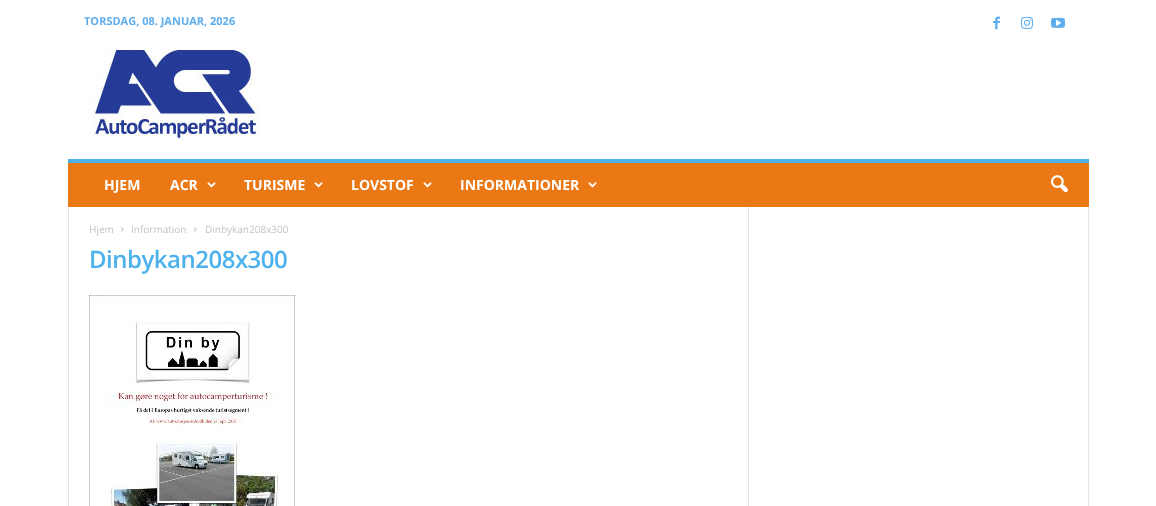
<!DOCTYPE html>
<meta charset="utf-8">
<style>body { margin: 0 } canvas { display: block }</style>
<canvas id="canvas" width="1156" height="506"></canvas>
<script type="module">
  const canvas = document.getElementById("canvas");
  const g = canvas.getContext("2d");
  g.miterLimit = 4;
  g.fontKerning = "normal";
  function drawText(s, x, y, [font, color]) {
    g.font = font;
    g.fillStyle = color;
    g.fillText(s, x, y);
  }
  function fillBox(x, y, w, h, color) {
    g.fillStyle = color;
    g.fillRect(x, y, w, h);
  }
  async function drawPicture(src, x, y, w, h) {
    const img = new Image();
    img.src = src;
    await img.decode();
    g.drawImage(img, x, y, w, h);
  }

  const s1 = ["bold 11px Open Sans", "#5EADED"];
  const s2 = ["bold 14px Open Sans", "#FFFFFF"];
  const s3 = ["10px Open Sans", "#C3C3C3"];
  const s4 = ["600 24px Open Sans", "#4DB2EC"];

  fillBox(0, 0, 1156, 506, "#FFFFFF");
  drawText("TORSDAG, 08. JANUAR, 2026", 84, 25, s1);
  await drawPicture("pic1.png", 993, 16, 7, 14);
  await drawPicture("pic2.png", 1021, 16, 12, 13);
  await drawPicture("pic3.png", 1051, 17, 14, 11);
  await drawPicture("pic4.png", 92, 49, 168, 90);
  fillBox(68, 163, 1021, 44, "#EA7815");
  fillBox(68, 159, 1021, 4, "#4DB2EC");
  drawText("HJEM", 104, 190, s2);
  drawText("ACR", 170, 190, s2);
  await drawPicture("pic5.png", 207, 182, 9, 6);
  drawText("TURISME", 244, 190, s2);
  await drawPicture("pic5.png", 314, 182, 9, 6);
  drawText("LOVSTOF", 351, 190, s2);
  await drawPicture("pic5.png", 423, 182, 9, 6);
  drawText("INFORMATIONER", 460, 190, s2);
  await drawPicture("pic5.png", 588, 182, 9, 6);
  await drawPicture("pic6.png", 1051, 175, 17, 18);
  fillBox(68, 207, 1, 299, "#E6E6E6");
  drawText("Hjem", 89, 233, s3);
  await drawPicture("pic7.png", 121, 227, 3, 5);
  drawText("Information", 131, 233, s3);
  await drawPicture("pic7.png", 194, 227, 3, 5);
  drawText("Dinbykan208x300", 205, 233, s3);
  g.letterSpacing = "-0.5px";
  drawText("Dinbykan208x300", 89, 268, s4);
  await drawPicture("pic8.png", 89, 295, 207, 211);
  fillBox(748, 207, 1, 299, "#E6E6E6");
  fillBox(1088, 207, 1, 299, "#E6E6E6");
</script>
